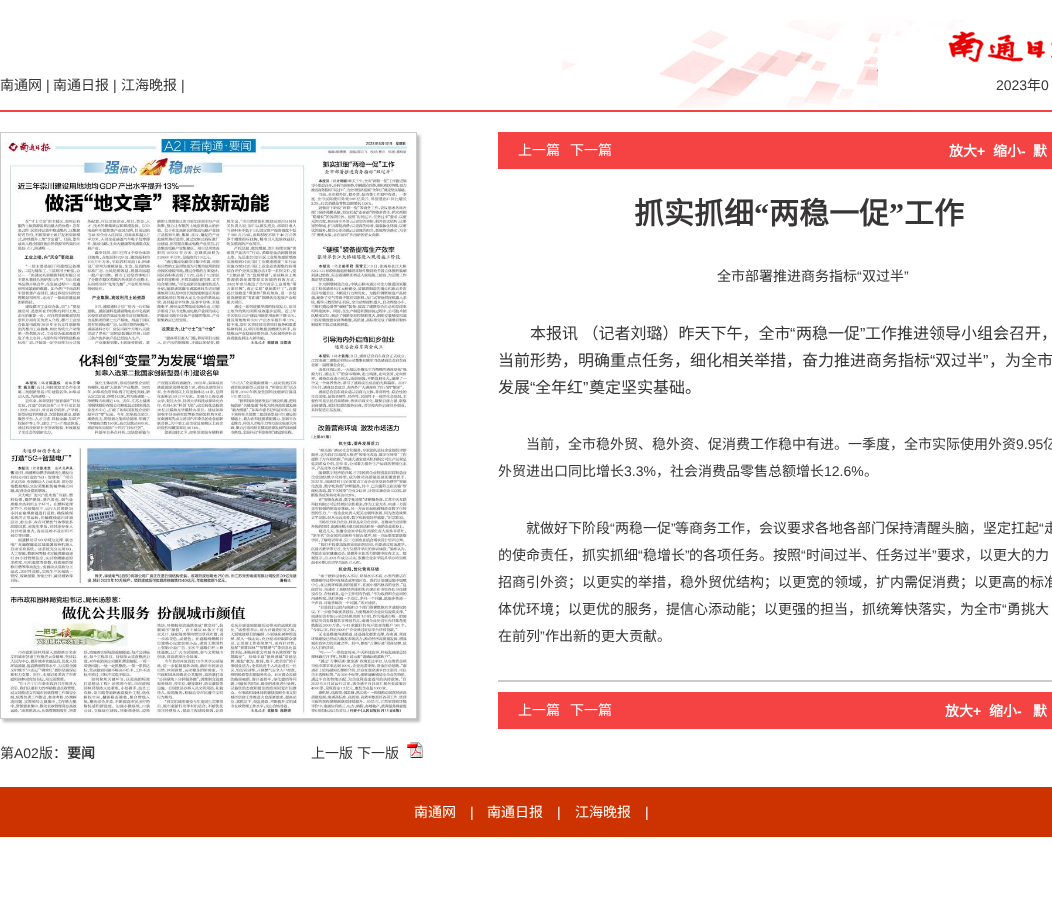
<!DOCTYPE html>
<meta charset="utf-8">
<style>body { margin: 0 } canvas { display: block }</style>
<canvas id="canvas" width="1052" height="900"></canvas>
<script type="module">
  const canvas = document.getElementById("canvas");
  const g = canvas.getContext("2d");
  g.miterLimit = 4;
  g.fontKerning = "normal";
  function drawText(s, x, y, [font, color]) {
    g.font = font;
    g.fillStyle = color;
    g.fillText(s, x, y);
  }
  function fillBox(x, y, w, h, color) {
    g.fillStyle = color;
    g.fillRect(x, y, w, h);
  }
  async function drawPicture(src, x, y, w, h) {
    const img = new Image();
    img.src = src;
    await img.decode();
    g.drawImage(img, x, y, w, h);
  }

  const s1 = ["14px Noto Sans CJK SC", "#373535"];
  const s2 = ["14px Liberation Sans", "#373535"];
  const s3 = ["14px Noto Sans CJK SC", "#FFFFFF"];
  const s4 = ["bold 14px Noto Sans CJK SC", "#FFFFFF"];
  const s5 = ["bold 14px Liberation Sans", "#FFFFFF"];
  const s6 = ["bold 30px Noto Sans CJK SC", "#373535"];
  const s7 = ["bold 30px Liberation Serif", "#373535"];
  const s8 = ["16px Noto Sans CJK SC", "#373535"];
  const s9 = ["16px Liberation Sans", "#373535"];
  const s10 = ["bold 14px Noto Sans CJK SC", "#373535"];
  const s11 = ["14px Liberation Sans", "#FFFFFF"];

  fillBox(0, 0, 1052, 900, "#FFFFFF");
  await drawPicture("pic1.png", 562, 20, 490, 88);
  fillBox(0, 110, 1052, 2, "#F54343");
  drawText("南通网", 0, 90, s1);
  drawText("|", 46, 90, s2);
  drawText("南通日报", 53, 90, s1);
  drawText("|", 113, 90, s2);
  drawText("江海晚报", 121, 90, s1);
  drawText("|", 181, 90, s2);
  drawText("2023", 996, 90, s2);
  drawText("年", 1027, 90, s1);
  drawText("0", 1041, 90, s2);
  fillBox(498, 132, 554, 37, "#F54343");
  drawText("上一篇", 518, 155, s3);
  drawText("下一篇", 570, 155, s3);
  drawText("放大", 949, 156, s4);
  drawText("+", 977, 156, s5);
  drawText("缩小", 993, 156, s4);
  drawText("-", 1021, 156, s5);
  drawText("默", 1033, 156, s4);
  fillBox(498, 680, 554, 2, "#CBCBCB");
  drawText("抓实抓细", 634, 224, s6);
  drawText("“", 754, 224, s7);
  drawText("两稳一促", 769, 224, s6);
  drawText("”", 889, 224, s7);
  drawText("工作", 904, 224, s6);
  drawText("全市部署推进商务指标", 717, 281, s1);
  drawText("“", 857, 281, s2);
  drawText("双过半", 862, 281, s1);
  drawText("”", 904, 281, s2);
  g.wordSpacing = "1px";
  drawText("本报讯 （记者刘璐）昨天下午，全市", 530, 339, s8);
  g.wordSpacing = "0px";
  drawText("“", 790, 339, s9);
  drawText("两稳一促", 796, 339, s8);
  drawText("”", 860, 339, s9);
  drawText("工作推进领导小组会召开，", 865, 339, s8);
  drawText("当前形势，明确重点任务，细化相关举措，奋力推进商务指标", 498, 366, s8);
  drawText("“", 930, 366, s9);
  drawText("双过半", 935, 366, s8);
  drawText("”", 983, 366, s9);
  drawText("，为全市", 989, 366, s8);
  drawText("发展", 498, 393, s8);
  drawText("“", 530, 393, s9);
  drawText("全年红", 535, 393, s8);
  drawText("”", 583, 393, s9);
  drawText("奠定坚实基础。", 589, 393, s8);
  drawText("当前，全市稳外贸、稳外资、促消费工作稳中有进。一季度，全市实际使用外资", 526, 449, s1);
  drawText("9.95", 1016, 449, s2);
  drawText("亿", 1043, 449, s1);
  drawText("外贸进出口同比增长", 498, 476, s1);
  drawText("3.3%", 624, 476, s2);
  drawText("，社会消费品零售总额增长", 656, 476, s1);
  drawText("12.6%", 824, 476, s2);
  drawText("。", 864, 476, s1);
  drawText("就做好下阶段", 526, 533, s1);
  drawText("“", 610, 533, s2);
  drawText("两稳一促", 615, 533, s1);
  drawText("”", 671, 533, s2);
  drawText("等商务工作，会议要求各地各部门保持清醒头脑，坚定扛起", 675, 533, s1);
  drawText("“", 1039, 533, s2);
  drawText("走", 1044, 533, s1);
  drawText("的使命责任，抓实抓细", 498, 560, s1);
  drawText("“", 638, 560, s2);
  drawText("稳增长", 643, 560, s1);
  drawText("”", 685, 560, s2);
  drawText("的各项任务。按照", 689, 560, s1);
  drawText("“", 801, 560, s2);
  drawText("时间过半、任务过半", 806, 560, s1);
  drawText("”", 932, 560, s2);
  drawText("要求，以更大的力", 937, 560, s1);
  drawText("招商引外资；以更实的举措，稳外贸优结构；以更宽的领域，扩内需促消费；以更高的标准", 498, 587, s1);
  drawText("体优环境；以更优的服务，提信心添动能；以更强的担当，抓统筹快落实，为全市", 498, 614, s1);
  drawText("“", 1002, 614, s2);
  drawText("勇挑大", 1007, 614, s1);
  drawText("在前列", 498, 641, s1);
  drawText("”", 540, 641, s2);
  drawText("作出新的更大贡献。", 545, 641, s1);
  fillBox(498, 692, 554, 37, "#F54343");
  drawText("上一篇", 518, 715, s3);
  drawText("下一篇", 570, 715, s3);
  drawText("放大", 945, 716, s4);
  drawText("+", 973, 716, s5);
  drawText("缩小", 989, 716, s4);
  drawText("-", 1017, 716, s5);
  drawText("默", 1033, 716, s4);
  g.save();
  g.beginPath();
  g.moveTo(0, 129);
  g.lineTo(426, 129);
  g.lineTo(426, 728);
  g.lineTo(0, 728);
  g.closePath();
  g.moveTo(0, 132);
  g.lineTo(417, 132);
  g.lineTo(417, 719);
  g.lineTo(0, 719);
  g.closePath();
  g.clip("evenodd");
  g.fillStyle = "#BCBCBC";
  g.filter = "blur(1.5px)";
  g.beginPath();
  g.rect(3, 135, 417, 587);
  g.fill();
  g.filter = "none";
  g.restore();
  g.strokeStyle = "#CBCBCB";
  g.strokeRect(0.5, 132.5, 416, 586);
  await drawPicture("pic2.png", 1, 133, 409, 583);
  drawText("第", 0, 758, s1);
  drawText("A02", 14, 758, s2);
  drawText("版：", 39, 758, s1);
  drawText("要闻", 67, 758, s10);
  drawText("上一版", 311, 758, s1);
  drawText("下一版", 357, 758, s1);
  await drawPicture("pic3.png", 407, 742, 16, 16);
  fillBox(0, 787, 1052, 50, "#CC3300");
  drawText("南通网", 414, 817, s3);
  drawText("|", 470, 817, s11);
  drawText("南通日报", 487, 817, s3);
  drawText("|", 557, 817, s11);
  drawText("江海晚报", 575, 817, s3);
  drawText("|", 645, 817, s11);
</script>
